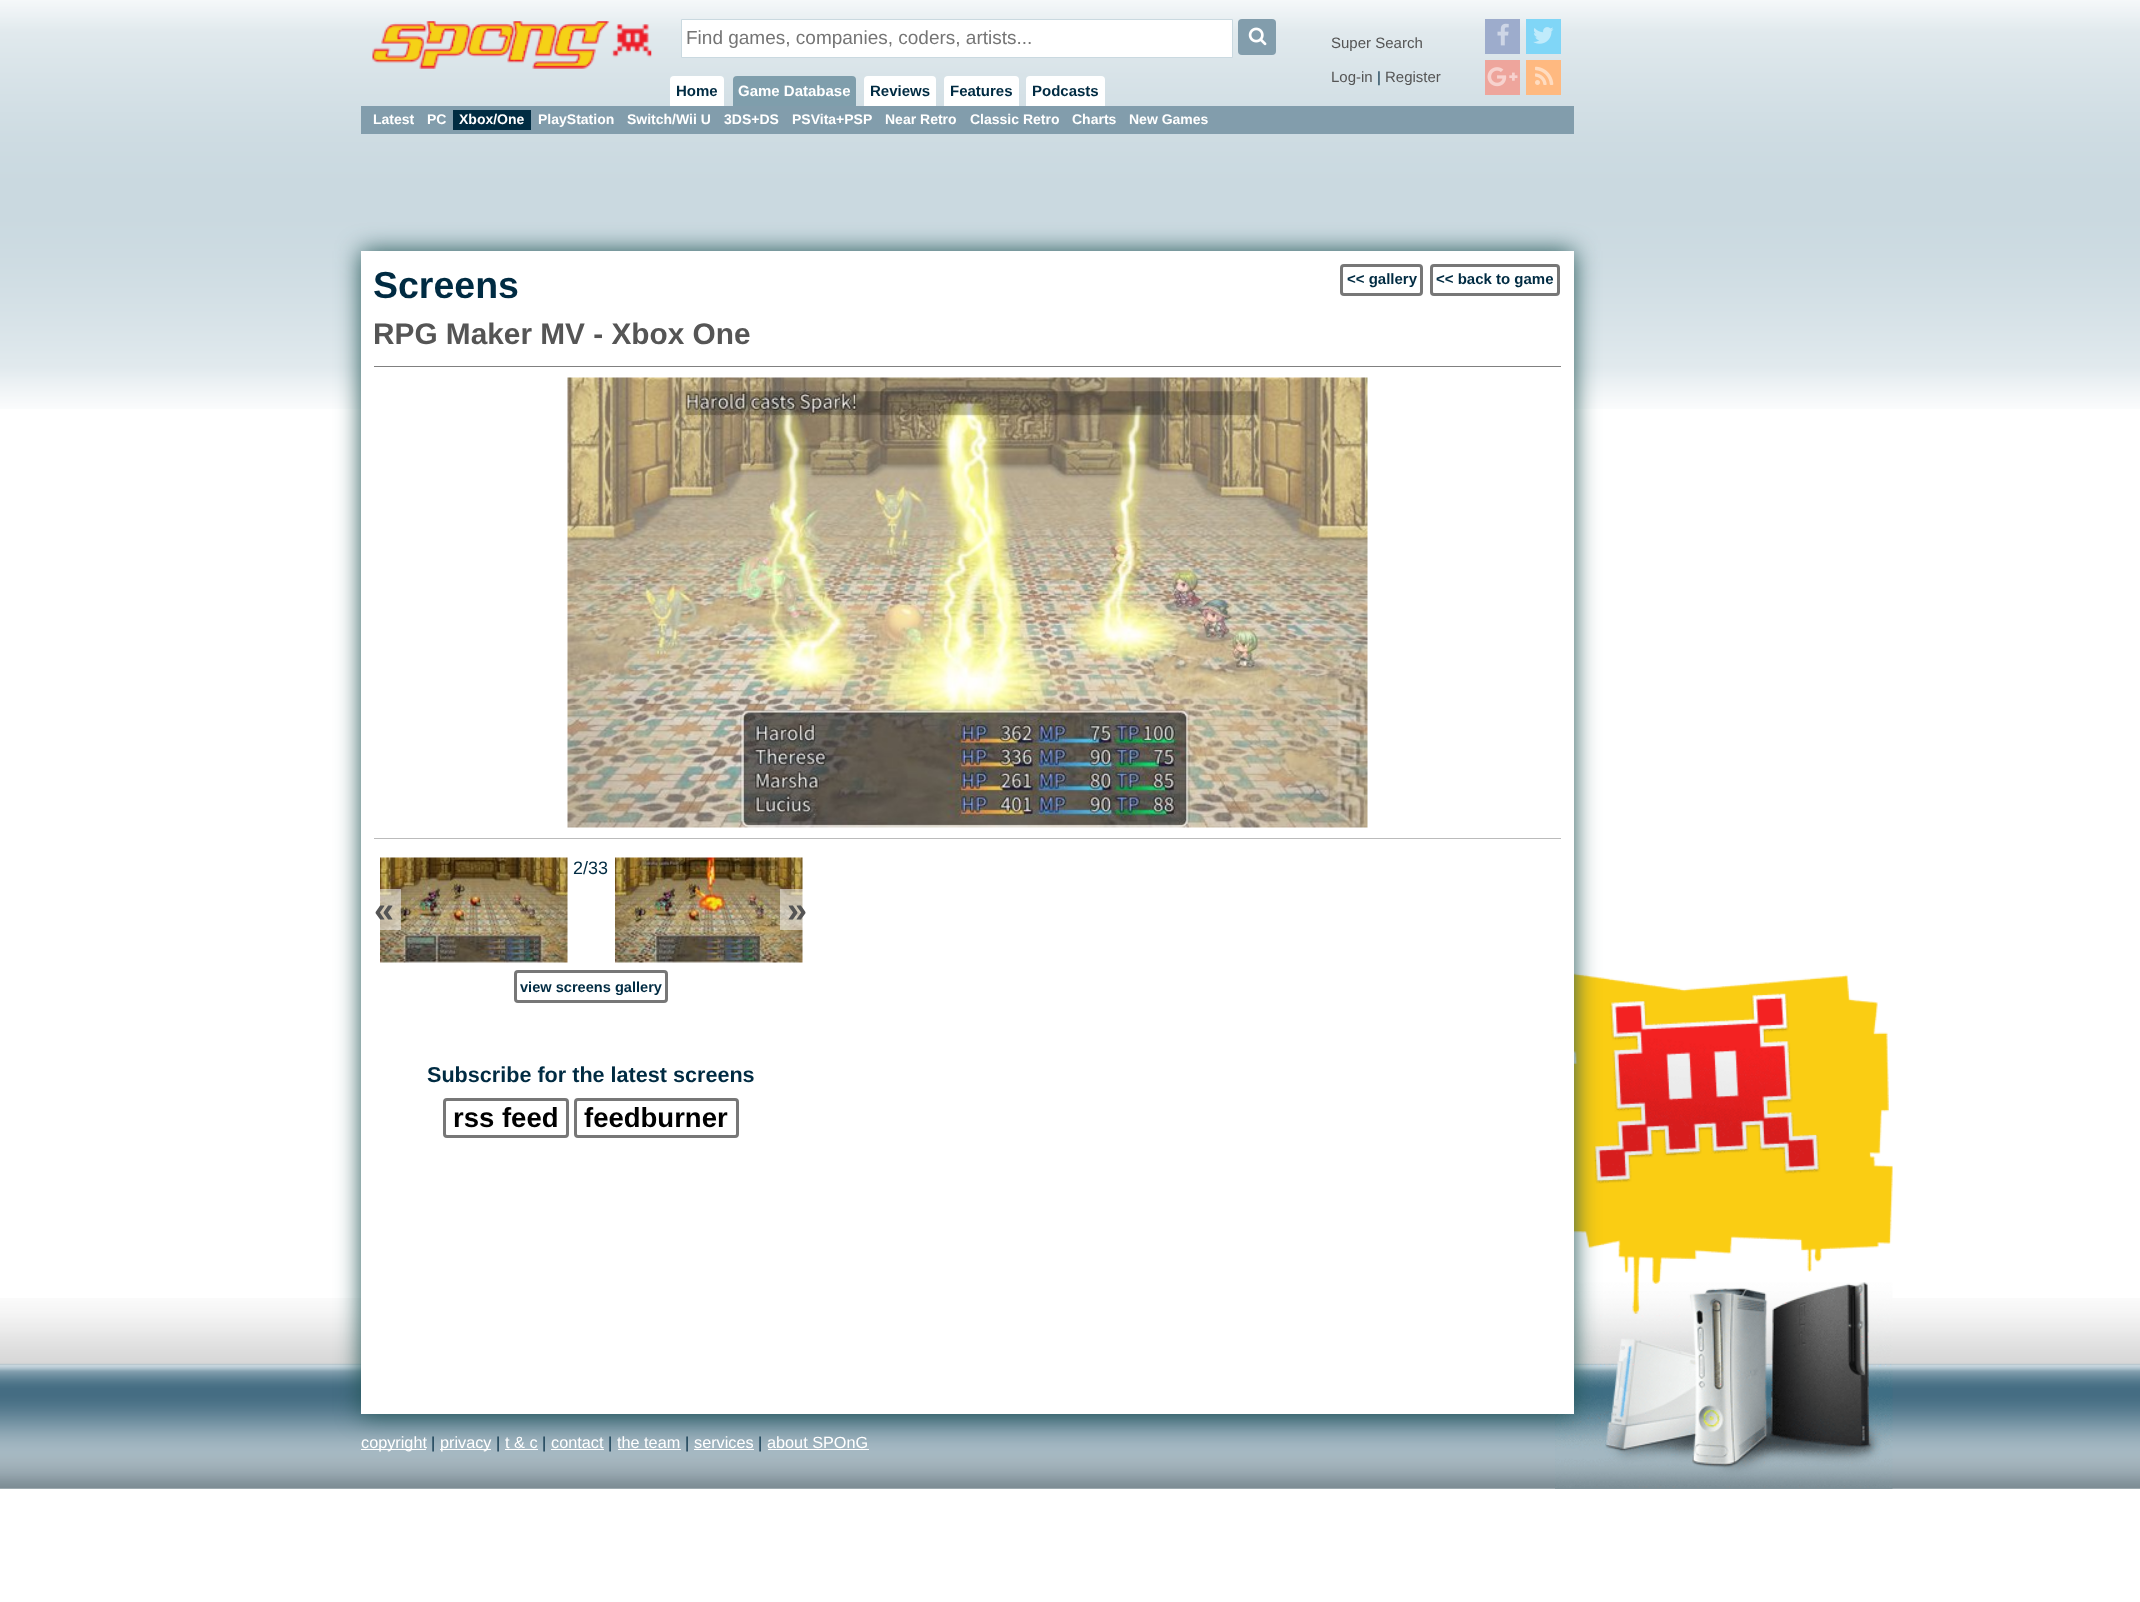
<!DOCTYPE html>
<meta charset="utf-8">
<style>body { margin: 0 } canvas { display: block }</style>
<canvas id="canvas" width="2140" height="1602"></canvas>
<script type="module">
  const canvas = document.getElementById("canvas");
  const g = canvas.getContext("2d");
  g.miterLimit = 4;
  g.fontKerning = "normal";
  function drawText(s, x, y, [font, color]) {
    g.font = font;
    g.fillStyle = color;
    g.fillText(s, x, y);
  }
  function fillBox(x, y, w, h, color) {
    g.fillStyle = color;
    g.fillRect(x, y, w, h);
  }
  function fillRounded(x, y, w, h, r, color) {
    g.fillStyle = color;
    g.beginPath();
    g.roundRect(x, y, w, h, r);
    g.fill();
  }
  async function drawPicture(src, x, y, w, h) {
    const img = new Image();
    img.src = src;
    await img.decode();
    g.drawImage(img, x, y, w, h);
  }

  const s1 = ["19px Liberation Sans", "#757575"];
  const s2 = ["15px Liberation Sans", "#555555"];
  const s3 = ["15px Liberation Sans", "#002B42"];
  const s4 = ["bold 15px Liberation Sans", "#FFFFFF"];
  const s5 = ["bold 14px Liberation Sans", "#FFFFFF"];
  const s6 = ["bold 15px Liberation Sans", "#002B42"];
  const s7 = ["bold 37.5px Liberation Sans", "#002B42"];
  const s8 = ["bold 29.8px Liberation Sans", "#555555"];
  const s9 = ["18px Liberation Sans", "#002B42"];
  const s10 = ["bold 36px Liberation Sans", "#555555"];
  const s11 = ["bold 14.6px Liberation Sans", "#002B42"];
  const s12 = ["bold 21.6px Liberation Sans", "#002B42"];
  const s13 = ["bold 27.5px Liberation Sans", "#000000"];
  const s14 = ["16.25px Liberation Sans", "#FFFFFF"];
  const s15 = ["16px Liberation Sans", "#002B42"];

  fillBox(0, 0, 2140, 1602, "#FFFFFF");
  await drawPicture("pic1.png", 0, 0, 2140, 409);
  await drawPicture("pic2.png", 372, 21, 280, 48);
  g.beginPath();
  g.rect(681.5, 19.5, 551, 38);
  g.fill();
  g.strokeStyle = "#CAD9E0";
  g.stroke();
  drawText("Find games, companies, coders, artists...", 686, 44, s1);
  fillRounded(1238, 19, 38, 36, 4, "#829DAC");
  await drawPicture("pic3.png", 1248, 27, 19, 19);
  drawText("Super Search", 1331, 48, s2);
  fillBox(1485, 19, 35, 35, "#9DACCC");
  await drawPicture("pic4.png", 1497, 23, 12, 23);
  fillBox(1526, 19, 35, 35, "#80D6F7");
  await drawPicture("pic5.png", 1533, 27, 21, 17);
  fillBox(1485, 60, 35, 35, "#EEA59C");
  await drawPicture("pic6.png", 1487, 67, 31, 20);
  fillBox(1526, 60, 35, 35, "#FFB980");
  await drawPicture("pic7.png", 1535, 66, 19, 19);
  drawText("Log-in", 1331, 82, s2);
  drawText("|", 1377, 82, s3);
  drawText("Register", 1385, 82, s2);
  g.fillStyle = "#7F9EAC";
  g.beginPath();
  g.roundRect(733, 76, 123, 30, [4, 4, 0, 0]);
  g.fill();
  drawText("Game Database", 738, 96, s4);
  fillBox(361, 106, 1213, 28, "#829DAC");
  drawText("Latest", 373, 124, s5);
  drawText("PC", 427, 124, s5);
  fillBox(453, 110, 78, 20, "#002C42");
  drawText("Xbox/One", 459, 124, s5);
  drawText("PlayStation", 538, 124, s5);
  drawText("Switch/Wii U", 627, 124, s5);
  drawText("3DS+DS", 724, 124, s5);
  drawText("PSVita+PSP", 792, 124, s5);
  drawText("Near Retro", 885, 124, s5);
  drawText("Classic Retro", 970, 124, s5);
  drawText("Charts", 1072, 124, s5);
  drawText("New Games", 1129, 124, s5);
  g.beginPath();
  g.roundRect(670, 76, 54, 30, [4, 4, 0, 0]);
  g.fill();
  drawText("Home", 676, 96, s6);
  g.fillStyle = "#FFFFFF";
  g.beginPath();
  g.roundRect(864, 76, 72, 30, [4, 4, 0, 0]);
  g.fill();
  drawText("Reviews", 870, 96, s6);
  g.fillStyle = "#FFFFFF";
  g.beginPath();
  g.roundRect(944, 76, 75, 30, [4, 4, 0, 0]);
  g.fill();
  drawText("Features", 950, 96, s6);
  g.fillStyle = "#FFFFFF";
  g.beginPath();
  g.roundRect(1026, 76, 79, 30, [4, 4, 0, 0]);
  g.fill();
  drawText("Podcasts", 1032, 96, s6);
  await drawPicture("pic12.png", 0, 1298, 2140, 191);
  fillBox(361, 1449, 65, 1, "#FFFFFF");
  fillBox(440, 1449, 51, 1, "#FFFFFF");
  fillBox(505, 1449, 33, 1, "#FFFFFF");
  fillBox(551, 1449, 53, 1, "#FFFFFF");
  fillBox(618, 1449, 63, 1, "#FFFFFF");
  fillBox(694, 1449, 60, 1, "#FFFFFF");
  fillBox(768, 1449, 101, 1, "#FFFFFF");
  await drawPicture("pic11.png", 1555, 973, 338, 516);
  g.fillStyle = "#225555";
  g.filter = "blur(12.5px)";
  g.beginPath();
  g.rect(361, 251, 1213, 1163);
  g.fill();
  g.filter = "none";
  fillBox(361, 251, 1213, 1163, "#FFFFFF");
  fillBox(374, 366, 1187, 1, "#808080");
  drawText("Screens", 373, 298, s7);
  g.beginPath();
  g.roundRect(1341.5, 265.5, 80, 29, 2.5);
  g.strokeStyle = "#777777";
  g.lineWidth = 3;
  g.stroke();
  drawText("<< gallery", 1347, 284, s6);
  g.beginPath();
  g.roundRect(1431.5, 265.5, 127, 29, 2.5);
  g.stroke();
  drawText("<< back to game", 1436, 284, s6);
  drawText("RPG Maker MV - Xbox One", 373, 344, s8);
  await drawPicture("pic8.png", 567, 377, 801, 451);
  fillBox(374, 838, 1187, 1, "#BBBBBB");
  drawText("2/33", 573, 874, s9);
  await drawPicture("pic9.png", 380, 857, 188, 106);
  fillBox(380, 889, 21, 41, "rgba(255, 255, 255, 0.5)");
  drawText("«", 374, 922, s10);
  await drawPicture("pic10.png", 615, 857, 188, 106);
  fillBox(780, 889, 23, 41, "rgba(255, 255, 255, 0.5)");
  drawText("»", 787, 922, s10);
  g.beginPath();
  g.roundRect(515.5, 971.5, 151, 30, 2.5);
  g.stroke();
  drawText("view screens gallery", 520, 992, s11);
  drawText("Subscribe for the latest screens", 427, 1082, s12);
  g.beginPath();
  g.roundRect(444.5, 1099.5, 123, 37, 2.5);
  g.stroke();
  drawText("rss feed", 453, 1127, s13);
  g.beginPath();
  g.roundRect(575.5, 1099.5, 162, 37, 2.5);
  g.stroke();
  drawText("feedburner", 584, 1127, s13);
  drawText("copyright", 361, 1448, s14);
  drawText("|", 431, 1448, s15);
  drawText("privacy", 440, 1448, s14);
  drawText("|", 496, 1448, s15);
  drawText("t & c", 505, 1448, s14);
  drawText("|", 542, 1448, s15);
  drawText("contact", 551, 1448, s14);
  drawText("|", 608, 1448, s15);
  drawText("the team", 617, 1448, s14);
  drawText("|", 685, 1448, s15);
  drawText("services", 694, 1448, s14);
  drawText("|", 758, 1448, s15);
  drawText("about SPOnG", 767, 1448, s14);
</script>
